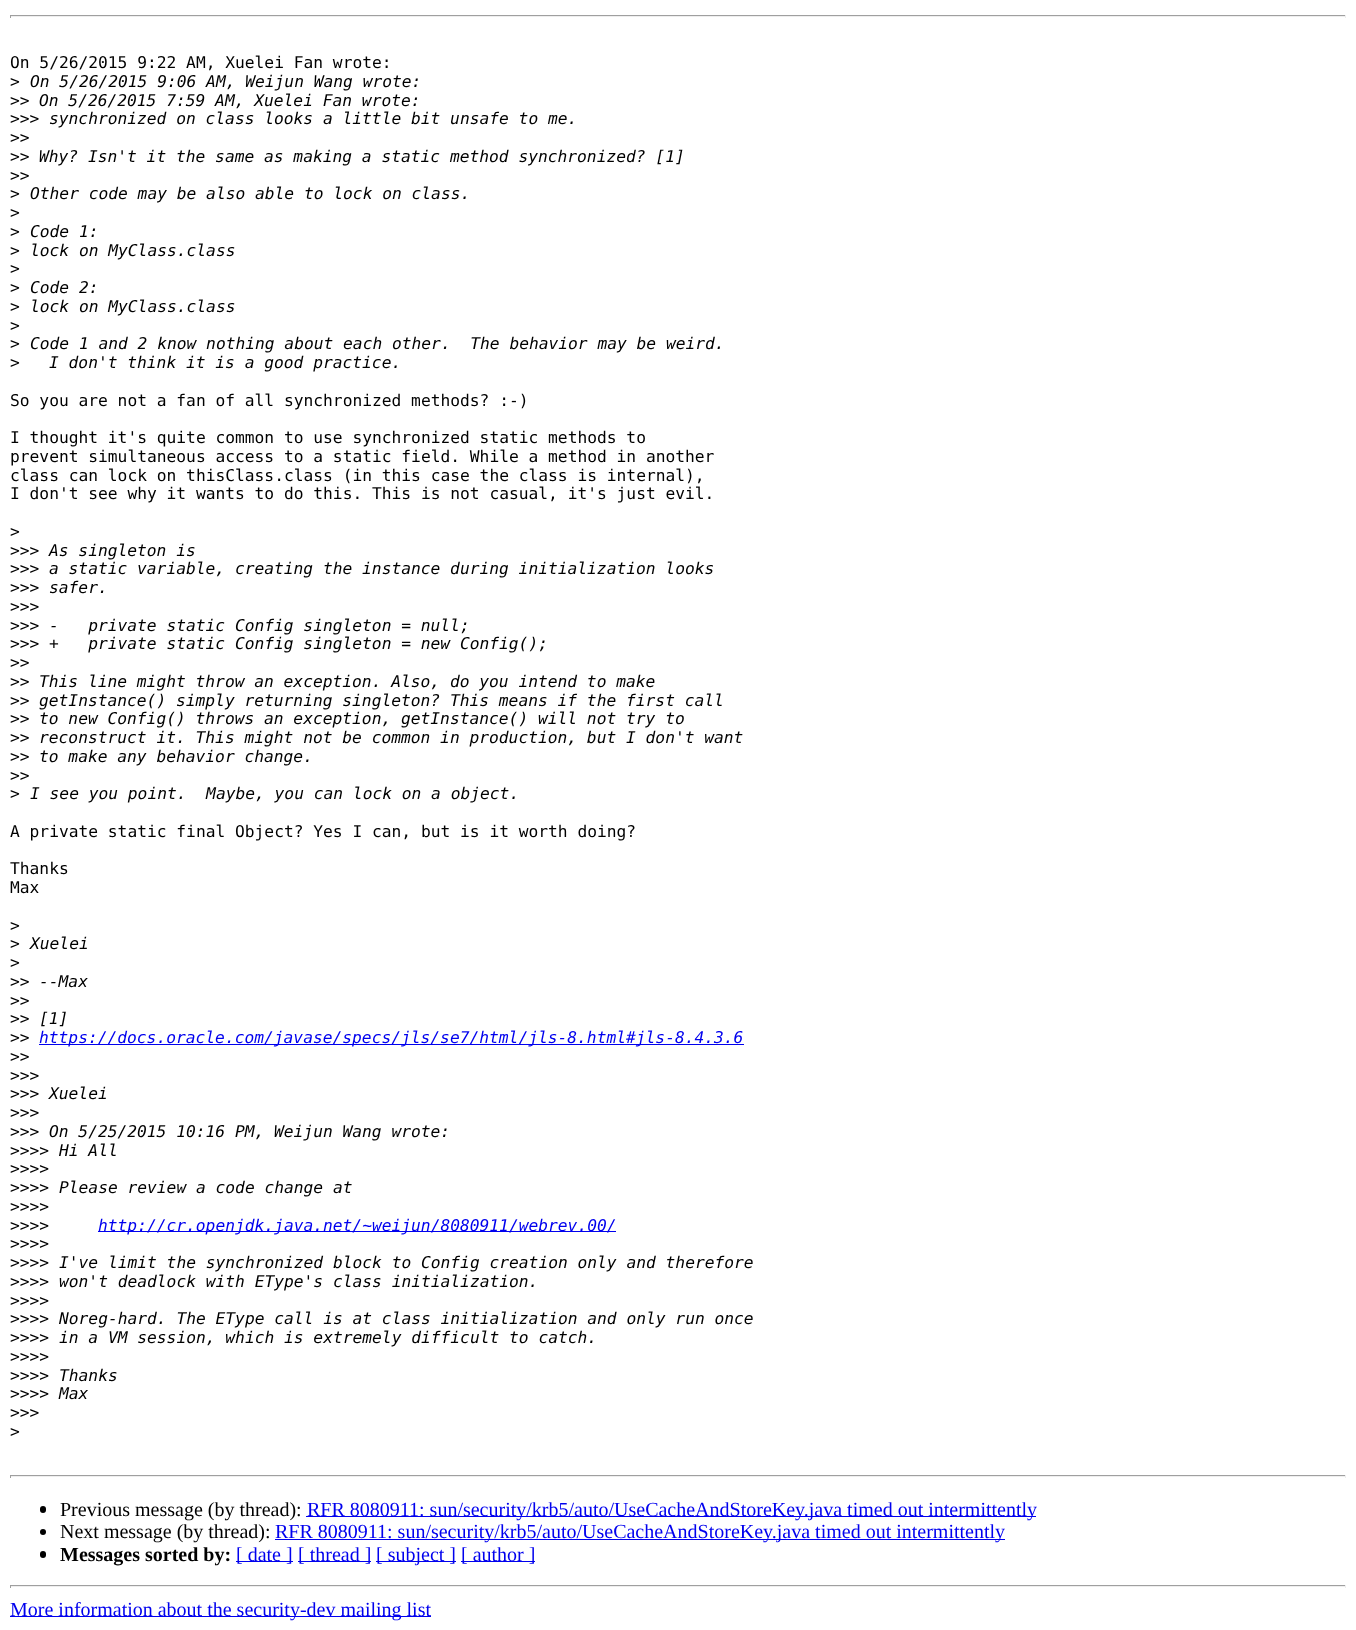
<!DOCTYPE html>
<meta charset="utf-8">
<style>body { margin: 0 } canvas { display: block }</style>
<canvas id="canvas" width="1356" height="1630"></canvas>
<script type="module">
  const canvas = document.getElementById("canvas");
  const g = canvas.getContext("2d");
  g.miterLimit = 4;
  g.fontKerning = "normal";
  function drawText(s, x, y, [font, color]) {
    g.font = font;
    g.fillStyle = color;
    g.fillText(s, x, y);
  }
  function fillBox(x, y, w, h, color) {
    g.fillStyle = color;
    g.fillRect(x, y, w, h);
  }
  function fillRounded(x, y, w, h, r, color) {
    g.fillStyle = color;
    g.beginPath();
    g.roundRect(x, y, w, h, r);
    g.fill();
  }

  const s1 = ["16.25px DejaVu Sans Mono", "#000000"];
  const s2 = ["italic 16.25px DejaVu Sans Mono", "#000000"];
  const s3 = ["italic 16.25px DejaVu Sans Mono", "#0000EE"];
  const s4 = ["20px Liberation Serif", "#000000"];
  const s5 = ["20px Liberation Serif", "#0000EE"];
  const s6 = ["bold 20px Liberation Serif", "#000000"];

  fillBox(0, 0, 1356, 1630, "#FFFFFF");
  fillBox(10, 15, 1336, 1, "#9F9F9F");
  fillBox(1345, 15, 1, 3, "#EEEEEE");
  fillBox(10, 16, 1336, 1, "#EEEEEE");
  fillBox(10, 15, 1, 3, "#9F9F9F");
  drawText("On 5/26/2015 9:22 AM, Xuelei Fan wrote:", 10, 68, s1);
  drawText(">", 10, 87, s1);
  drawText("On 5/26/2015 9:06 AM, Weijun Wang wrote:", 30, 87, s2);
  drawText(">>", 10, 106, s1);
  drawText("On 5/26/2015 7:59 AM, Xuelei Fan wrote:", 39, 106, s2);
  drawText(">>>", 10, 124, s1);
  drawText("synchronized on class looks a little bit unsafe to me.", 49, 124, s2);
  drawText(">>", 10, 143, s1);
  drawText(">>", 10, 162, s1);
  drawText("Why? Isn't it the same as making a static method synchronized? [1]", 39, 162, s2);
  drawText(">>", 10, 181, s1);
  drawText(">", 10, 199, s1);
  drawText("Other code may be also able to lock on class.", 30, 199, s2);
  drawText(">", 10, 218, s1);
  drawText(">", 10, 237, s1);
  drawText("Code 1:", 30, 237, s2);
  drawText(">", 10, 256, s1);
  drawText("lock on MyClass.class", 30, 256, s2);
  drawText(">", 10, 274, s1);
  drawText(">", 10, 293, s1);
  drawText("Code 2:", 30, 293, s2);
  drawText(">", 10, 312, s1);
  drawText("lock on MyClass.class", 30, 312, s2);
  drawText(">", 10, 331, s1);
  drawText(">", 10, 349, s1);
  drawText("Code 1 and 2 know nothing about each other.  The behavior may be weird.", 30, 349, s2);
  drawText(">", 10, 368, s1);
  drawText("I don't think it is a good practice.", 49, 368, s2);
  drawText("So you are not a fan of all synchronized methods? :-)", 10, 406, s1);
  drawText("I thought it's quite common to use synchronized static methods to", 10, 443, s1);
  drawText("prevent simultaneous access to a static field. While a method in another", 10, 462, s1);
  drawText("class can lock on thisClass.class (in this case the class is internal),", 10, 481, s1);
  drawText("I don't see why it wants to do this. This is not casual, it's just evil.", 10, 499, s1);
  drawText(">", 10, 537, s1);
  drawText(">>>", 10, 556, s1);
  drawText("As singleton is", 49, 556, s2);
  drawText(">>>", 10, 574, s1);
  drawText("a static variable, creating the instance during initialization looks", 49, 574, s2);
  drawText(">>>", 10, 593, s1);
  drawText("safer.", 49, 593, s2);
  drawText(">>>", 10, 612, s1);
  drawText(">>>", 10, 631, s1);
  drawText("-   private static Config singleton = null;", 49, 631, s2);
  drawText(">>>", 10, 649, s1);
  drawText("+   private static Config singleton = new Config();", 49, 649, s2);
  drawText(">>", 10, 668, s1);
  drawText(">>", 10, 687, s1);
  drawText("This line might throw an exception. Also, do you intend to make", 39, 687, s2);
  drawText(">>", 10, 706, s1);
  drawText("getInstance() simply returning singleton? This means if the first call", 39, 706, s2);
  drawText(">>", 10, 724, s1);
  drawText("to new Config() throws an exception, getInstance() will not try to", 39, 724, s2);
  drawText(">>", 10, 743, s1);
  drawText("reconstruct it. This might not be common in production, but I don't want", 39, 743, s2);
  drawText(">>", 10, 762, s1);
  drawText("to make any behavior change.", 39, 762, s2);
  drawText(">>", 10, 781, s1);
  drawText(">", 10, 799, s1);
  drawText("I see you point.  Maybe, you can lock on a object.", 30, 799, s2);
  drawText("A private static final Object? Yes I can, but is it worth doing?", 10, 837, s1);
  drawText("Thanks", 10, 874, s1);
  drawText("Max", 10, 893, s1);
  drawText(">", 10, 931, s1);
  drawText(">", 10, 949, s1);
  drawText("Xuelei", 30, 949, s2);
  drawText(">", 10, 968, s1);
  drawText(">>", 10, 987, s1);
  drawText("--Max", 39, 987, s2);
  drawText(">>", 10, 1006, s1);
  drawText(">>", 10, 1024, s1);
  drawText("[1]", 39, 1024, s2);
  drawText(">>", 10, 1043, s1);
  fillBox(39, 1044, 705, 1, "#0000EE");
  drawText("https://docs.oracle.com/javase/specs/jls/se7/html/jls-8.html#jls-8.4.3.6", 39, 1043, s3);
  drawText(">>", 10, 1062, s1);
  drawText(">>>", 10, 1081, s1);
  drawText(">>>", 10, 1099, s1);
  drawText("Xuelei", 49, 1099, s2);
  drawText(">>>", 10, 1118, s1);
  drawText(">>>", 10, 1137, s1);
  drawText("On 5/25/2015 10:16 PM, Weijun Wang wrote:", 49, 1137, s2);
  drawText(">>>>", 10, 1156, s1);
  drawText("Hi All", 59, 1156, s2);
  drawText(">>>>", 10, 1174, s1);
  drawText(">>>>", 10, 1193, s1);
  drawText("Please review a code change at", 59, 1193, s2);
  drawText(">>>>", 10, 1212, s1);
  drawText(">>>>", 10, 1231, s1);
  fillBox(98, 1231, 518, 1, "#0000EE");
  drawText("http://cr.openjdk.java.net/~weijun/8080911/webrev.00/", 98, 1231, s3);
  drawText(">>>>", 10, 1249, s1);
  drawText(">>>>", 10, 1268, s1);
  drawText("I've limit the synchronized block to Config creation only and therefore", 59, 1268, s2);
  drawText(">>>>", 10, 1287, s1);
  drawText("won't deadlock with EType's class initialization.", 59, 1287, s2);
  drawText(">>>>", 10, 1306, s1);
  drawText(">>>>", 10, 1324, s1);
  drawText("Noreg-hard. The EType call is at class initialization and only run once", 59, 1324, s2);
  drawText(">>>>", 10, 1343, s1);
  drawText("in a VM session, which is extremely difficult to catch.", 59, 1343, s2);
  drawText(">>>>", 10, 1362, s1);
  drawText(">>>>", 10, 1381, s1);
  drawText("Thanks", 59, 1381, s2);
  drawText(">>>>", 10, 1399, s1);
  drawText("Max", 59, 1399, s2);
  drawText(">>>", 10, 1418, s1);
  drawText(">", 10, 1437, s1);
  fillBox(10, 1475, 1336, 1, "#9F9F9F");
  fillBox(1345, 1475, 1, 3, "#EEEEEE");
  fillBox(10, 1476, 1336, 1, "#EEEEEE");
  fillBox(10, 1475, 1, 3, "#9F9F9F");
  fillRounded(40, 1506, 6, 7, 3, "#000000");
  drawText("Previous message (by thread):", 60, 1516, s4);
  fillBox(306, 1516, 730, 1, "#0000EE");
  drawText("RFR 8080911: sun/security/krb5/auto/UseCacheAndStoreKey.java timed out intermittently", 307, 1516, s5);
  g.fillStyle = "#000000";
  g.beginPath();
  g.arc(43, 1532, 3, 0, Math.PI * 2);
  g.fill();
  drawText("Next message (by thread):", 60, 1538, s4);
  fillBox(275, 1539, 730, 1, "#0000EE");
  drawText("RFR 8080911: sun/security/krb5/auto/UseCacheAndStoreKey.java timed out intermittently", 275, 1538, s5);
  fillRounded(40, 1551, 6, 7, 3, "#000000");
  drawText("Messages sorted by:", 60, 1561, s6);
  fillBox(236, 1561, 57, 1, "#0000EE");
  drawText("[ date ]", 236, 1561, s5);
  fillBox(298, 1561, 73, 1, "#0000EE");
  drawText("[ thread ]", 298, 1561, s5);
  fillBox(376, 1561, 80, 1, "#0000EE");
  drawText("[ subject ]", 376, 1561, s5);
  fillBox(461, 1561, 74, 1, "#0000EE");
  drawText("[ author ]", 461, 1561, s5);
  fillBox(10, 1585, 1336, 1, "#9F9F9F");
  fillBox(1345, 1585, 1, 3, "#EEEEEE");
  fillBox(10, 1586, 1336, 1, "#EEEEEE");
  fillBox(10, 1585, 1, 3, "#9F9F9F");
  fillBox(10, 1616, 421, 1, "#0000EE");
  drawText("More information about the security-dev mailing list", 10, 1616, s5);
</script>
